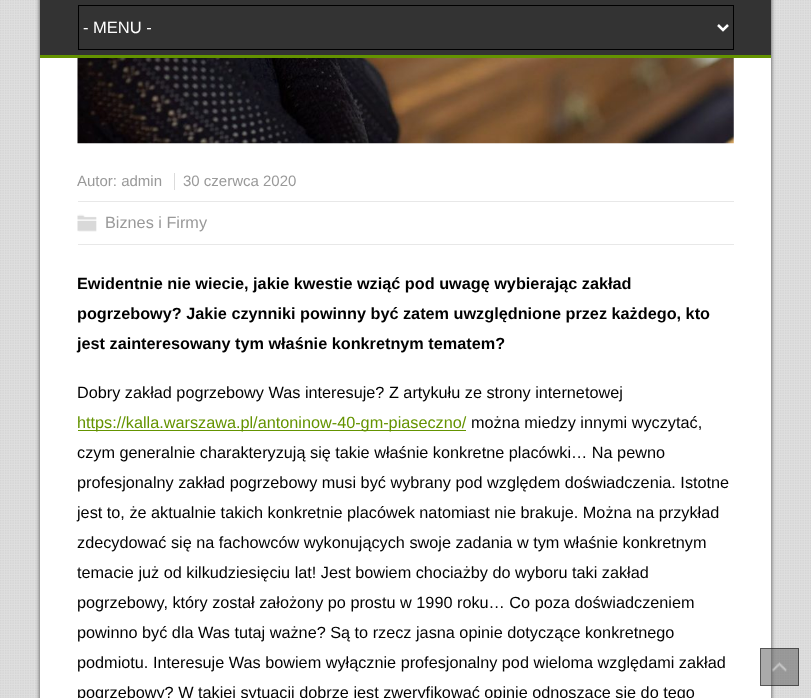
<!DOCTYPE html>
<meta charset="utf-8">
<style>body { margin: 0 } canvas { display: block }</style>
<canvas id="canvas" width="811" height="698"></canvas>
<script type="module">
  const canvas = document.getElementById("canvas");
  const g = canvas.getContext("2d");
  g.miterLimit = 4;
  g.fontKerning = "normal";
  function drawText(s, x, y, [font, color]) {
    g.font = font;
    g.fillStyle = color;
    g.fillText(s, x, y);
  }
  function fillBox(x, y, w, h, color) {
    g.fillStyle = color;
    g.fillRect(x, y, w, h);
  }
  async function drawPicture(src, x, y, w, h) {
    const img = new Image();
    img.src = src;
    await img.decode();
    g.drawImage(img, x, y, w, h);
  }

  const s1 = ["16.5px Liberation Sans", "#FFFFFF"];
  const s2 = ["15px Liberation Sans", "#999999"];
  const s3 = ["16.25px Liberation Sans", "#999999"];
  const s4 = ["bold 16.25px Liberation Sans", "#000000"];
  const s5 = ["16.25px Liberation Sans", "#000000"];
  const s6 = ["16.25px Liberation Sans", "#649300"];

  fillBox(0, 0, 811, 698, "#DEDEDE");
  await drawPicture("pic1.png", 0, 0, 811, 698);
  g.fillStyle = "#444444";
  g.filter = "blur(2px)";
  g.beginPath();
  g.rect(40, -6, 731, 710);
  g.fill();
  g.filter = "none";
  fillBox(40, 58, 731, 640, "#FFFFFF");
  fillBox(40, 0, 731, 55, "#333333");
  fillBox(40, 55, 731, 3, "#649300");
  g.strokeStyle = "#000000";
  g.strokeRect(78.5, 5.5, 655, 44);
  g.beginPath();
  g.moveTo(718, 25);
  g.lineTo(723, 30);
  g.lineTo(728, 25);
  g.strokeStyle = "#FFFFFF";
  g.lineWidth = 2.5;
  g.stroke();
  drawText("- MENU -", 83, 33, s1);
  await drawPicture("pic2.png", 77, 58, 657, 86);
  drawText("Autor: admin", 77, 186, s2);
  drawText("30 czerwca 2020", 183, 186, s2);
  fillBox(174, 173, 1, 17, "#DBDBDB");
  fillBox(78, 201, 656, 1, "#E8E8E8");
  fillBox(78, 244, 656, 1, "#E8E8E8");
  await drawPicture("pic3.png", 77, 214, 20, 18);
  drawText("Biznes i Firmy", 105, 228, s3);
  drawText("Ewidentnie nie wiecie, jakie kwestie wziąć pod uwagę wybierając zakład", 77, 289, s4);
  drawText("pogrzebowy? Jakie czynniki powinny być zatem uwzględnione przez każdego, kto", 77, 319, s4);
  drawText("jest zainteresowany tym właśnie konkretnym tematem?", 77, 349, s4);
  drawText("Dobry zakład pogrzebowy Was interesuje? Z artykułu ze strony internetowej", 77, 398, s5);
  fillBox(78, 430, 388, 1, "#649300");
  drawText("https://kalla.warszawa.pl/antoninow-40-gm-piaseczno/", 77, 428, s6);
  drawText("można miedzy innymi wyczytać,", 471, 428, s5);
  drawText("czym generalnie charakteryzują się takie właśnie konkretne placówki… Na pewno", 77, 458, s5);
  drawText("profesjonalny zakład pogrzebowy musi być wybrany pod względem doświadczenia. Istotne", 77, 488, s5);
  drawText("jest to, że aktualnie takich konkretnie placówek natomiast nie brakuje. Można na przykład", 77, 518, s5);
  drawText("zdecydować się na fachowców wykonujących swoje zadania w tym właśnie konkretnym", 77, 548, s5);
  drawText("temacie już od kilkudziesięciu lat! Jest bowiem chociażby do wyboru taki zakład", 77, 578, s5);
  drawText("pogrzebowy, który został założony po prostu w 1990 roku… Co poza doświadczeniem", 77, 608, s5);
  drawText("powinno być dla Was tutaj ważne? Są to rzecz jasna opinie dotyczące konkretnego", 77, 638, s5);
  drawText("podmiotu. Interesuje Was bowiem wyłącznie profesjonalny pod wieloma względami zakład", 77, 668, s5);
  drawText("pogrzebowy? W takiej sytuacji dobrze jest zweryfikować opinie odnoszące się do tego", 77, 698, s5);
  fillBox(760, 648, 39, 38, "rgba(85, 85, 85, 0.5)");
  await drawPicture("pic4.png", 772, 662, 15, 10);
  g.strokeStyle = "rgba(0, 0, 0, 0.5)";
  g.lineWidth = 1;
  g.strokeRect(760.5, 648.5, 38, 37);
</script>
